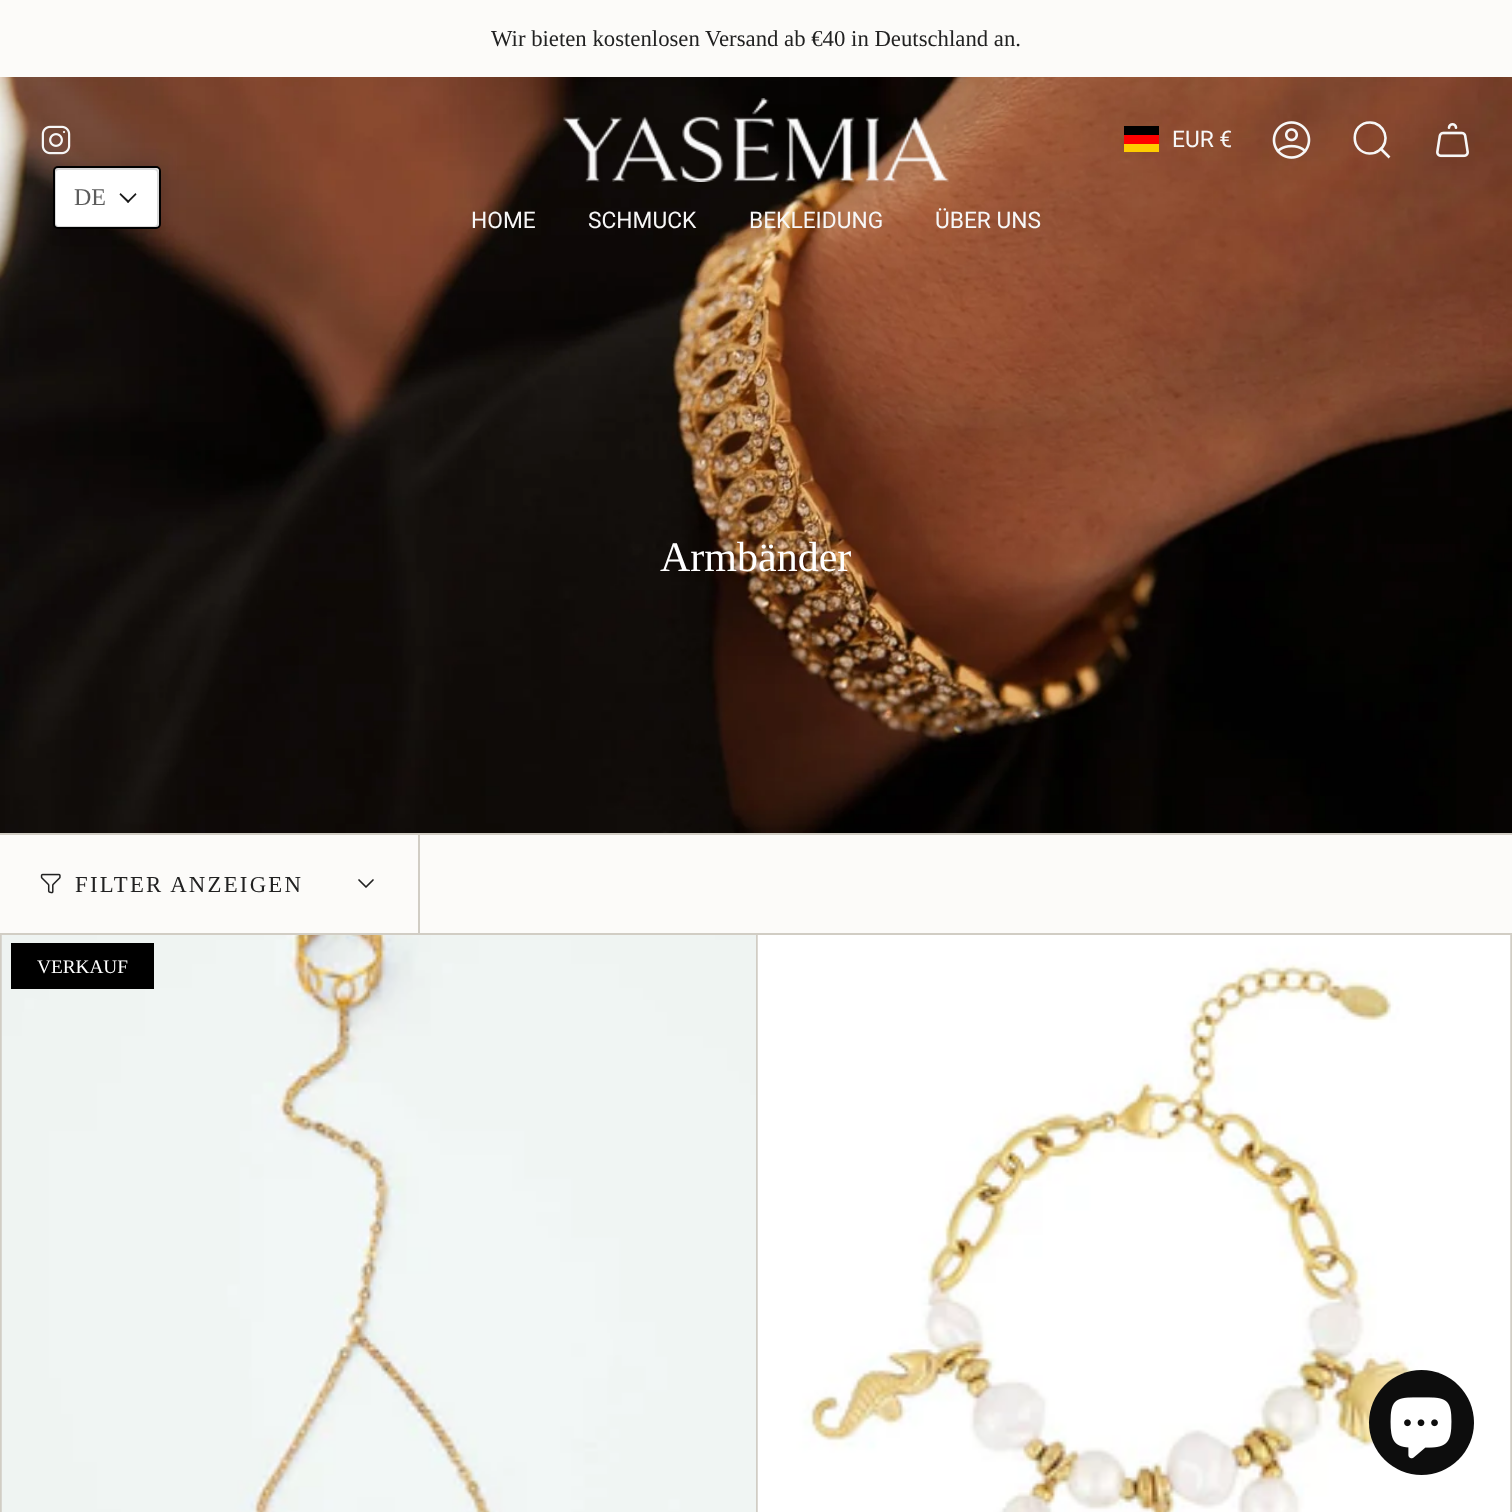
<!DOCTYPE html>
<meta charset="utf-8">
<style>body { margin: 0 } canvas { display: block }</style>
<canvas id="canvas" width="1512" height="1512"></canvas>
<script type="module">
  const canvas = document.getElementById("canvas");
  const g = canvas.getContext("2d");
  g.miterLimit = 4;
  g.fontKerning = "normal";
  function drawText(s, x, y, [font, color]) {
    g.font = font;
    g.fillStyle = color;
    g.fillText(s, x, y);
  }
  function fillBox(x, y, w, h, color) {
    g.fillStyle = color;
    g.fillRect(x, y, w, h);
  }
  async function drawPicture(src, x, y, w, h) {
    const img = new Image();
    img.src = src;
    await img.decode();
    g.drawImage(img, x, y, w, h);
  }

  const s1 = ["22.75px Liberation Serif", "#212121"];
  const s2 = ["22.75px Roboto", "#F7F7F7"];
  const s3 = ["42px Liberation Serif", "#FFFFFF"];
  const s4 = ["19.25px Liberation Serif", "#FFFFFF"];
  const s5 = ["24px Liberation Serif", "#5C5C5C"];

  fillBox(0, 0, 1512, 1512, "#FCFBF9");
  drawText("Wir bieten kostenlosen Versand ab €40 in Deutschland an.", 491, 46, s1);
  await drawPicture("pic5.png", 0, 77, 1512, 756);
  await drawPicture("pic1.png", 41, 125, 30, 30);
  await drawPicture("pic2.png", 563, 98, 386, 84);
  fillBox(1124, 144, 35, 8, "#FFCC00");
  fillBox(1124, 126, 35, 9, "#000000");
  fillBox(1124, 135, 35, 9, "#FF0000");
  drawText("EUR €", 1172, 147, s2);
  await drawPicture("pic3.png", 1272, 121, 39, 38);
  g.beginPath();
  g.moveTo(1370, 122.5);
  g.bezierCurveTo(1384.5, 122.5, 1391.5, 141.5, 1379, 150.5);
  g.bezierCurveTo(1376.5, 152.5, 1373, 153.5, 1369.5, 153.5);
  g.bezierCurveTo(1349.5, 152.5, 1350, 122.5, 1370, 122.5);
  g.closePath();
  g.moveTo(1381, 149);
  g.lineTo(1389.5, 157.5);
  g.strokeStyle = "#F7F7F7";
  g.lineWidth = 2.6;
  g.stroke();
  await drawPicture("pic4.png", 1436, 123, 33, 35);
  drawText("HOME", 471, 228, s2);
  drawText("SCHMUCK", 588, 228, s2);
  drawText("BEKLEIDUNG", 749, 228, s2);
  drawText("ÜBER UNS", 935, 228, s2);
  drawText("Armbänder", 660, 571, s3);
  fillBox(0, 833, 1512, 2, "#D1CDC4");
  fillBox(418, 835, 2, 98, "#D1CDC4");
  await drawPicture("pic6.png", 40, 873, 21, 21);
  g.letterSpacing = "2.25px";
  drawText("FILTER ANZEIGEN", 75, 892, s1);
  g.beginPath();
  g.moveTo(359, 880);
  g.lineTo(366, 887);
  g.lineTo(373, 880);
  g.strokeStyle = "#212121";
  g.lineWidth = 1.7;
  g.lineCap = "round";
  g.lineJoin = "round";
  g.stroke();
  g.strokeStyle = "#D1CDC4";
  g.lineWidth = 2;
  g.lineJoin = "miter";
  g.strokeRect(1, 934, 756, 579);
  await drawPicture("pic7.png", 1, 935, 755, 577);
  fillBox(11, 943, 143, 46, "#000000");
  g.letterSpacing = "0px";
  drawText("VERKAUF", 37, 973, s4);
  g.strokeRect(757, 934, 754, 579);
  await drawPicture("pic8.png", 757, 935, 754, 577);
  g.fillStyle = "rgba(0, 0, 0, 0.15)";
  g.filter = "blur(9px)";
  g.beginPath();
  g.roundRect(53, 166, 108, 63, 5);
  g.fill();
  g.filter = "none";
  g.fillStyle = "#FFFFFF";
  g.beginPath();
  g.roundRect(54, 167, 106, 61, 4);
  g.fill();
  g.strokeStyle = "#000000";
  g.stroke();
  g.beginPath();
  g.roundRect(55, 169, 103, 58, 4);
  g.strokeStyle = "rgba(0, 0, 0, 0.15)";
  g.stroke();
  drawText("DE", 74, 205, s5);
  g.fillStyle = "#1A1A1A";
  g.beginPath();
  g.moveTo(135.5, 193);
  g.lineTo(136.5, 194.5);
  g.lineTo(128, 203);
  g.lineTo(127, 201.5);
  g.closePath();
  g.fill();
  g.beginPath();
  g.moveTo(120.5, 193);
  g.lineTo(129.5, 201.5);
  g.lineTo(128, 203);
  g.lineTo(119.5, 194.5);
  g.closePath();
  g.fill();
  g.fillStyle = "#0D0D0D";
  g.beginPath();
  g.arc(1421.5, 1422.5, 52.5, 0, Math.PI * 2);
  g.fill();
  await drawPicture("pic9.png", 1390, 1397, 62, 62);
</script>
